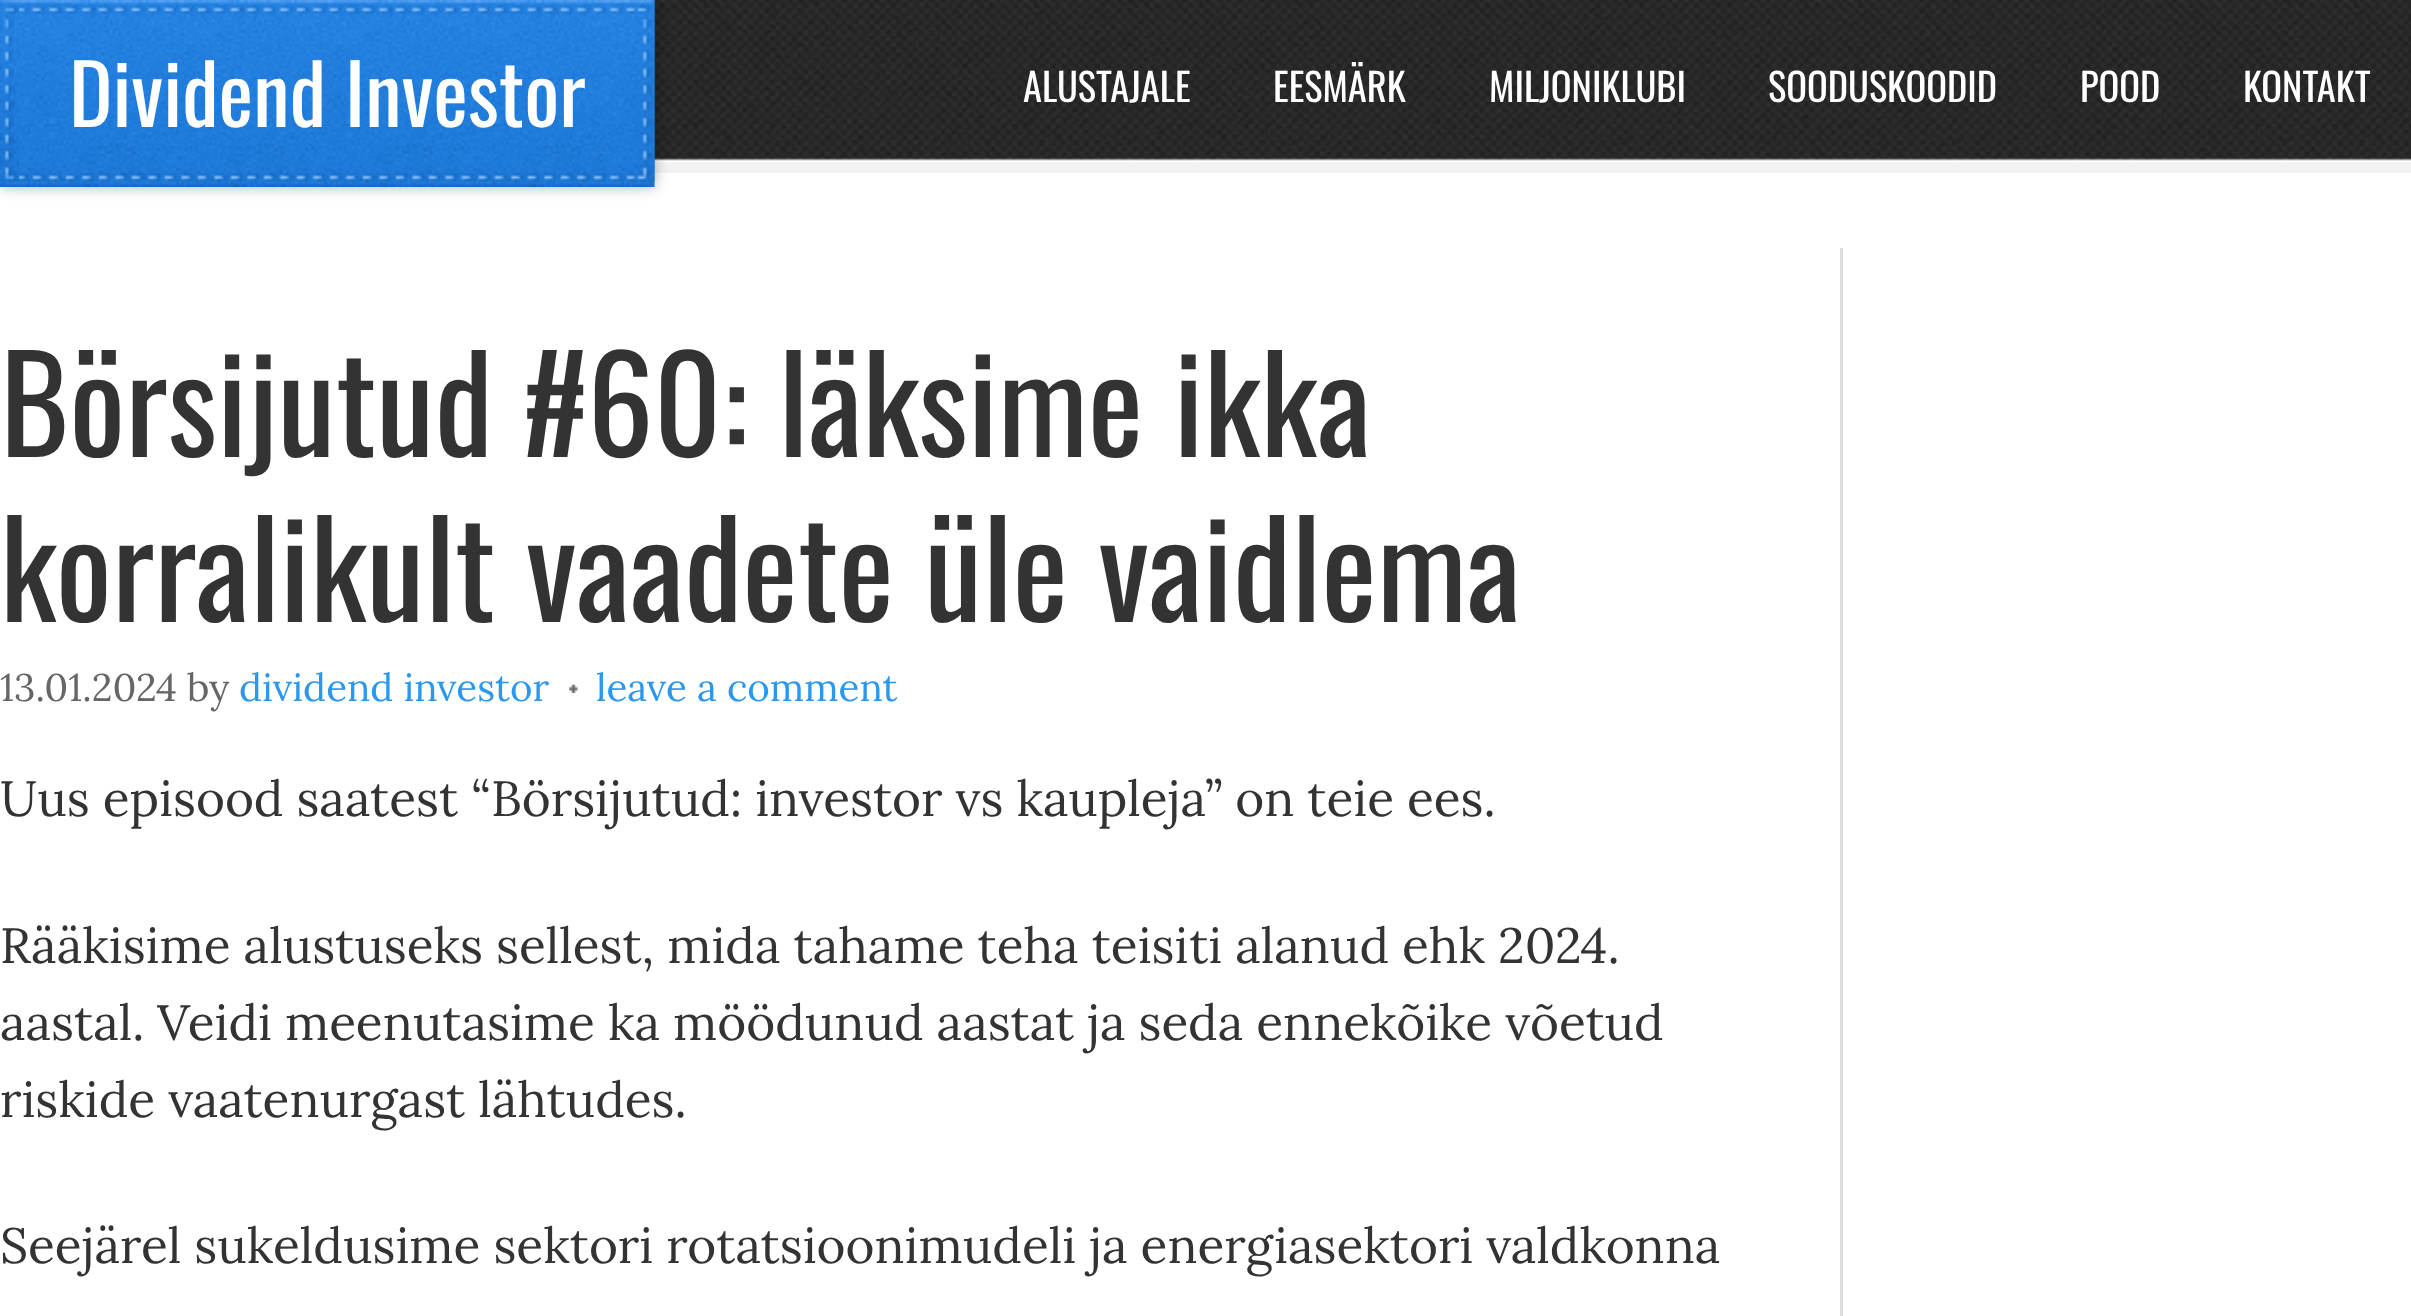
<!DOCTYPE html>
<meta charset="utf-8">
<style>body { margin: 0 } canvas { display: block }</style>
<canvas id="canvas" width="2411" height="1316"></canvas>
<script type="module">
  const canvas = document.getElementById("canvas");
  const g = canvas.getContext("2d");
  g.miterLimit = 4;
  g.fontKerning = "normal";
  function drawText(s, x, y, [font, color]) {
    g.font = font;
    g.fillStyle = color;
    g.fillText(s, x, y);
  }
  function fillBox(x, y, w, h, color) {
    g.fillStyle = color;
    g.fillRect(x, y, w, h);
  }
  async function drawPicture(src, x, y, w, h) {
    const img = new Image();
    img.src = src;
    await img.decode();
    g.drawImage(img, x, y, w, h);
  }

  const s1 = ["82.5px Oswald", "#FFFFFF"];
  const s2 = ["38.5px Oswald", "#FFFFFF"];
  const s3 = ["132px Oswald", "#333333"];
  const s4 = ["38.5px Lora", "#666666"];
  const s5 = ["38.5px Lora", "#2B97ED"];
  const s6 = ["49.5px Lora", "#333333"];

  fillBox(0, 0, 2411, 1316, "#FFFFFF");
  await drawPicture("pic1.png", 654, 0, 1757, 173);
  g.fillStyle = "rgba(0, 0, 0, 0.3)";
  g.filter = "blur(7px)";
  g.beginPath();
  g.rect(0, 0, 655, 187);
  g.fill();
  g.filter = "none";
  await drawPicture("pic2.png", 0, 0, 655, 187);
  await drawPicture("pic3.png", 0, 0, 20, 182);
  drawText("Dividend Investor", 69, 127, s1);
  await drawPicture("pic4.png", 635, 0, 20, 182);
  drawText("ALUSTAJALE", 1023, 102, s2);
  drawText("EESMÄRK", 1273, 102, s2);
  drawText("MILJONIKLUBI", 1489, 102, s2);
  drawText("SOODUSKOODID", 1768, 102, s2);
  drawText("POOD", 2080, 102, s2);
  drawText("KONTAKT", 2243, 102, s2);
  fillBox(1840, 248, 3, 1068, "#DDDDDD");
  drawText("Börsijutud #60: läksime ikka", 0, 457, s3);
  drawText("korralikult vaadete üle vaidlema", 0, 622, s3);
  drawText("13.01.2024 by", 0, 701, s4);
  drawText("dividend investor", 239, 701, s5);
  await drawPicture("pic5.png", 569, 684, 9, 9);
  drawText("leave a comment", 596, 701, s5);
  drawText("Uus episood saatest “Börsijutud: investor vs kaupleja” on teie ees.", 0, 816, s6);
  drawText("Rääkisime alustuseks sellest, mida tahame teha teisiti alanud ehk 2024.", 0, 963, s6);
  drawText("aastal. Veidi meenutasime ka möödunud aastat ja seda ennekõike võetud", 0, 1040, s6);
  drawText("riskide vaatenurgast lähtudes.", 0, 1117, s6);
  drawText("Seejärel sukeldusime sektori rotatsioonimudeli ja energiasektori valdkonna", 0, 1263, s6);
</script>
